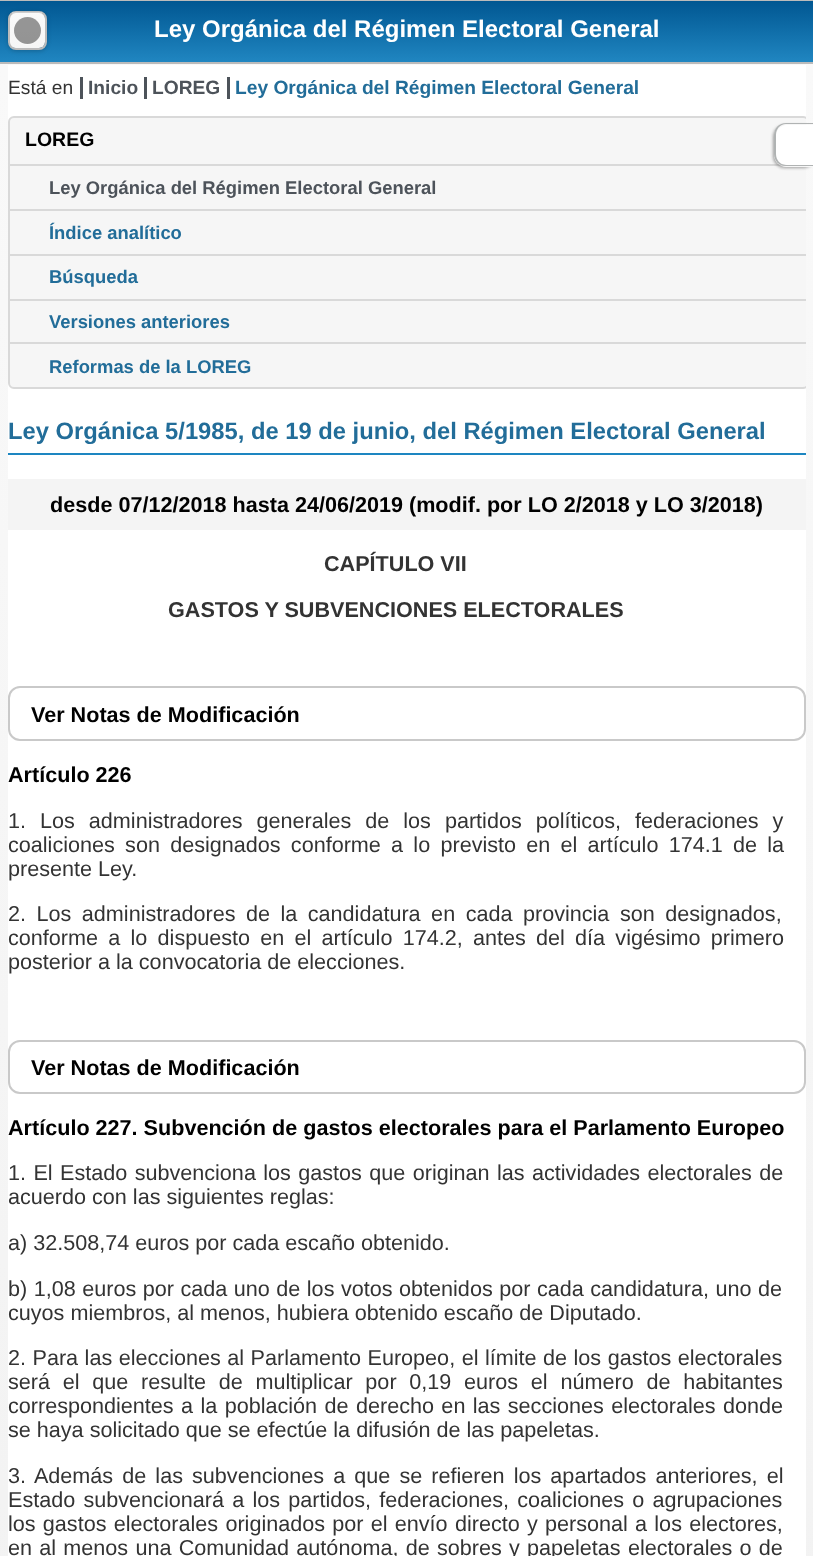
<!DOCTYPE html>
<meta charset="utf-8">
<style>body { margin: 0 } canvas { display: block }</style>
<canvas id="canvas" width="813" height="1556"></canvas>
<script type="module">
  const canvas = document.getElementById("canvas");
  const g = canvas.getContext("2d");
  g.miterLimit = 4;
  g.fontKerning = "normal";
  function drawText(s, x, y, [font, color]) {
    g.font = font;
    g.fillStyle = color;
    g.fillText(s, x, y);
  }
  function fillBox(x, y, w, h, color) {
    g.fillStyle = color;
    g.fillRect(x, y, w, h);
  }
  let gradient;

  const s1 = ["bold 24px Liberation Sans", "#FFFFFF"];
  const s2 = ["19.2px Liberation Sans", "#333333"];
  const s3 = ["bold 19.2px Liberation Sans", "#4D535A"];
  const s4 = ["bold 19.2px Liberation Sans", "#226D99"];
  const s5 = ["bold 19.5px Liberation Sans", "#000000"];
  const s6 = ["bold 18.4px Liberation Sans", "#4D535A"];
  const s7 = ["bold 18.4px Liberation Sans", "#226D99"];
  const s8 = ["bold 23.75px Liberation Sans", "#226D99"];
  const s9 = ["bold 21.6px Liberation Sans", "#000000"];
  const s10 = ["bold 21.6px Liberation Sans", "#333333"];
  const s11 = ["21.6px Liberation Sans", "#333333"];

  fillBox(0, 0, 813, 1556, "#FFFFFF");
  gradient = g.createLinearGradient(406, 0, 407, 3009);
  gradient.addColorStop(0, "#F9F9F9");
  gradient.addColorStop(1, "#EEEEEE");
  g.fillStyle = gradient;
  g.fillRect(0, 64, 813, 1);
  gradient = g.createLinearGradient(407, 0, 407, 62);
  gradient.addColorStop(0, "#005691");
  gradient.addColorStop(1, "#2086C1");
  g.fillStyle = gradient;
  g.fillRect(0, 1, 813, 61);
  fillBox(0, 0, 813, 1, "#BBBBBB");
  fillBox(0, 62, 813, 2, "#BBBBBB");
  g.fillStyle = "rgba(0, 0, 0, 0.2)";
  g.filter = "blur(2px)";
  g.beginPath();
  g.roundRect(8, 12, 39, 39, 8);
  g.fill();
  g.filter = "none";
  gradient = g.createLinearGradient(27, 12, 27, 48);
  gradient.addColorStop(0, "#FAFAFA");
  gradient.addColorStop(1, "#F6F6F6");
  g.fillStyle = gradient;
  g.beginPath();
  g.roundRect(9, 12, 36, 36, 6);
  g.fill();
  g.beginPath();
  g.roundRect(9, 12, 37, 37, 7);
  g.strokeStyle = "#BBBBBB";
  g.lineWidth = 2;
  g.stroke();
  fillBox(12, 12, 30, 2, "rgba(255, 255, 255, 0.3)");
  g.fillStyle = "#FAFAFA";
  g.beginPath();
  g.moveTo(14.5, 35);
  g.bezierCurveTo(15, 38, 17, 40.5, 19, 42);
  g.bezierCurveTo(30, 50.5, 45, 39, 40, 26.5);
  g.bezierCurveTo(44.5, 42.5, 20.5, 50.5, 14.5, 35);
  g.closePath();
  g.fill();
  g.fillStyle = "rgba(0, 0, 0, 0.4)";
  g.beginPath();
  g.arc(27.5, 30.5, 13.5, 0, Math.PI * 2);
  g.fill();
  drawText("Ley Orgánica del Régimen Electoral General", 154, 37, s1);
  gradient = g.createLinearGradient(406, 65, 407, 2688);
  gradient.addColorStop(0, "#F9F9F9");
  gradient.addColorStop(1, "#EEEEEE");
  g.fillStyle = gradient;
  g.fillRect(0, 65, 813, 1491);
  fillBox(8, 65, 798, 1491, "#FFFFFF");
  drawText("Está en", 8, 94, s2);
  fillBox(80, 77, 3, 22, "#4D535A");
  drawText("Inicio", 88, 94, s3);
  fillBox(144, 77, 3, 22, "#4D535A");
  drawText("LOREG", 152, 94, s3);
  fillBox(227, 77, 3, 22, "#4D535A");
  drawText("Ley Orgánica del Régimen Electoral General", 235, 94, s4);
  g.save();
  g.beginPath();
  g.rect(8, 65, 798, 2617);
  g.clip();
  g.fillStyle = "#F6F6F6";
  g.beginPath();
  g.roundRect(9, 117, 799, 271, 5);
  g.fill();
  g.strokeStyle = "#D9D9D9";
  g.stroke();
  g.restore();
  drawText("LOREG", 25, 146, s5);
  fillBox(9, 164, 778, 2, "#D9D9D9");
  drawText("Ley Orgánica del Régimen Electoral General", 49, 194, s6);
  fillBox(9, 209, 797, 2, "#D9D9D9");
  drawText("Índice analítico", 49, 239, s7);
  fillBox(9, 254, 797, 2, "#D9D9D9");
  drawText("Búsqueda", 49, 283, s7);
  fillBox(9, 299, 797, 2, "#D9D9D9");
  drawText("Versiones anteriores", 49, 328, s7);
  fillBox(9, 342, 797, 2, "#D9D9D9");
  drawText("Reformas de la LOREG", 49, 373, s7);
  fillBox(8, 453, 798, 2, "#1D86C1");
  drawText("Ley Orgánica 5/1985, de 19 de junio, del Régimen Electoral General", 8, 439, s8);
  fillBox(8, 479, 798, 51, "#F4F4F4");
  drawText("desde 07/12/2018 hasta 24/06/2019 (modif. por LO 2/2018 y LO 3/2018)", 50, 512, s9);
  drawText("CAPÍTULO VII", 324, 571, s10);
  drawText("GASTOS Y SUBVENCIONES ELECTORALES", 168, 617, s10);
  g.beginPath();
  g.roundRect(9, 687, 796, 53, 11);
  g.strokeStyle = "#C9C9C9";
  g.stroke();
  drawText("Ver Notas de Modificación", 31, 722, s9);
  drawText("Artículo 226", 8, 782, s9);
  g.wordSpacing = "8px";
  drawText("1. Los administradores generales de los partidos políticos, federaciones y", 8, 828, s11);
  g.wordSpacing = "4.25px";
  drawText("coaliciones son designados conforme a lo previsto en el artículo 174.1 de la", 8, 852, s11);
  g.wordSpacing = "0px";
  drawText("presente Ley.", 8, 876, s11);
  g.wordSpacing = "4.5px";
  drawText("2. Los administradores de la candidatura en cada provincia son designados,", 8, 921, s11);
  g.wordSpacing = "4.25px";
  drawText("conforme a lo dispuesto en el artículo 174.2, antes del día vigésimo primero", 8, 945, s11);
  g.wordSpacing = "0px";
  drawText("posterior a la convocatoria de elecciones.", 8, 969, s11);
  g.beginPath();
  g.roundRect(9, 1041, 796, 52, 11);
  g.stroke();
  drawText("Ver Notas de Modificación", 31, 1075, s9);
  drawText("Artículo 227. Subvención de gastos electorales para el Parlamento Europeo", 8, 1135, s9);
  g.wordSpacing = "1.4px";
  drawText("1. El Estado subvenciona los gastos que originan las actividades electorales de", 8, 1180, s11);
  g.wordSpacing = "0px";
  drawText("acuerdo con las siguientes reglas:", 8, 1204, s11);
  drawText("a) 32.508,74 euros por cada escaño obtenido.", 8, 1250, s11);
  g.wordSpacing = "0.5px";
  drawText("b) 1,08 euros por cada uno de los votos obtenidos por cada candidatura, uno de", 8, 1296, s11);
  g.wordSpacing = "0px";
  drawText("cuyos miembros, al menos, hubiera obtenido escaño de Diputado.", 8, 1320, s11);
  g.wordSpacing = "0.5px";
  drawText("2. Para las elecciones al Parlamento Europeo, el límite de los gastos electorales", 8, 1365, s11);
  g.wordSpacing = "6.75px";
  drawText("será el que resulte de multiplicar por 0,19 euros el número de habitantes", 8, 1389, s11);
  g.wordSpacing = "1.4px";
  drawText("correspondientes a la población de derecho en las secciones electorales donde", 8, 1413, s11);
  g.wordSpacing = "0px";
  drawText("se haya solicitado que se efectúe la difusión de las papeletas.", 8, 1437, s11);
  g.wordSpacing = "3.1px";
  drawText("3. Además de las subvenciones a que se refieren los apartados anteriores, el", 8, 1483, s11);
  g.wordSpacing = "2.25px";
  drawText("Estado subvencionará a los partidos, federaciones, coaliciones o agrupaciones", 8, 1507, s11);
  g.wordSpacing = "1.25px";
  drawText("los gastos electorales originados por el envío directo y personal a los electores,", 8, 1531, s11);
  drawText("en al menos una Comunidad autónoma, de sobres y papeletas electorales o de", 8, 1555, s11);
  g.save();
  g.beginPath();
  g.moveTo(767, 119);
  g.lineTo(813, 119);
  g.lineTo(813, 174);
  g.lineTo(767, 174);
  g.closePath();
  g.moveTo(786, 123);
  g.lineTo(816, 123);
  g.lineTo(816, 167);
  g.lineTo(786, 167);
  g.bezierCurveTo(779.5, 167, 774, 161.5, 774, 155);
  g.lineTo(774, 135);
  g.bezierCurveTo(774, 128.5, 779.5, 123, 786, 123);
  g.closePath();
  g.clip("evenodd");
  g.fillStyle = "rgba(122, 122, 122, 0.7)";
  g.filter = "blur(1.5px)";
  g.beginPath();
  g.roundRect(773, 125, 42, 43, 12);
  g.fill();
  g.filter = "none";
  g.restore();
  g.fillStyle = "#FFFFFF";
  g.beginPath();
  g.moveTo(787, 125);
  g.lineTo(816, 125);
  g.lineTo(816, 165);
  g.lineTo(787, 165);
  g.bezierCurveTo(781, 165, 776, 160, 776, 154);
  g.lineTo(776, 136);
  g.bezierCurveTo(776, 130, 781, 125, 787, 125);
  g.closePath();
  g.fill();
  g.fillStyle = "#B0B3B3";
  g.beginPath();
  g.moveTo(786, 123);
  g.lineTo(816, 123);
  g.lineTo(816, 166);
  g.lineTo(786, 166);
  g.bezierCurveTo(779, 166, 774, 161, 774, 154);
  g.lineTo(774, 135);
  g.bezierCurveTo(774, 128, 779, 123, 786, 123);
  g.closePath();
  g.moveTo(786, 124);
  g.lineTo(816, 124);
  g.lineTo(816, 165);
  g.lineTo(786, 165);
  g.bezierCurveTo(780, 165, 776, 160, 776, 154);
  g.lineTo(776, 135);
  g.bezierCurveTo(776, 129, 780, 124, 786, 124);
  g.closePath();
  g.fill("evenodd");
</script>
